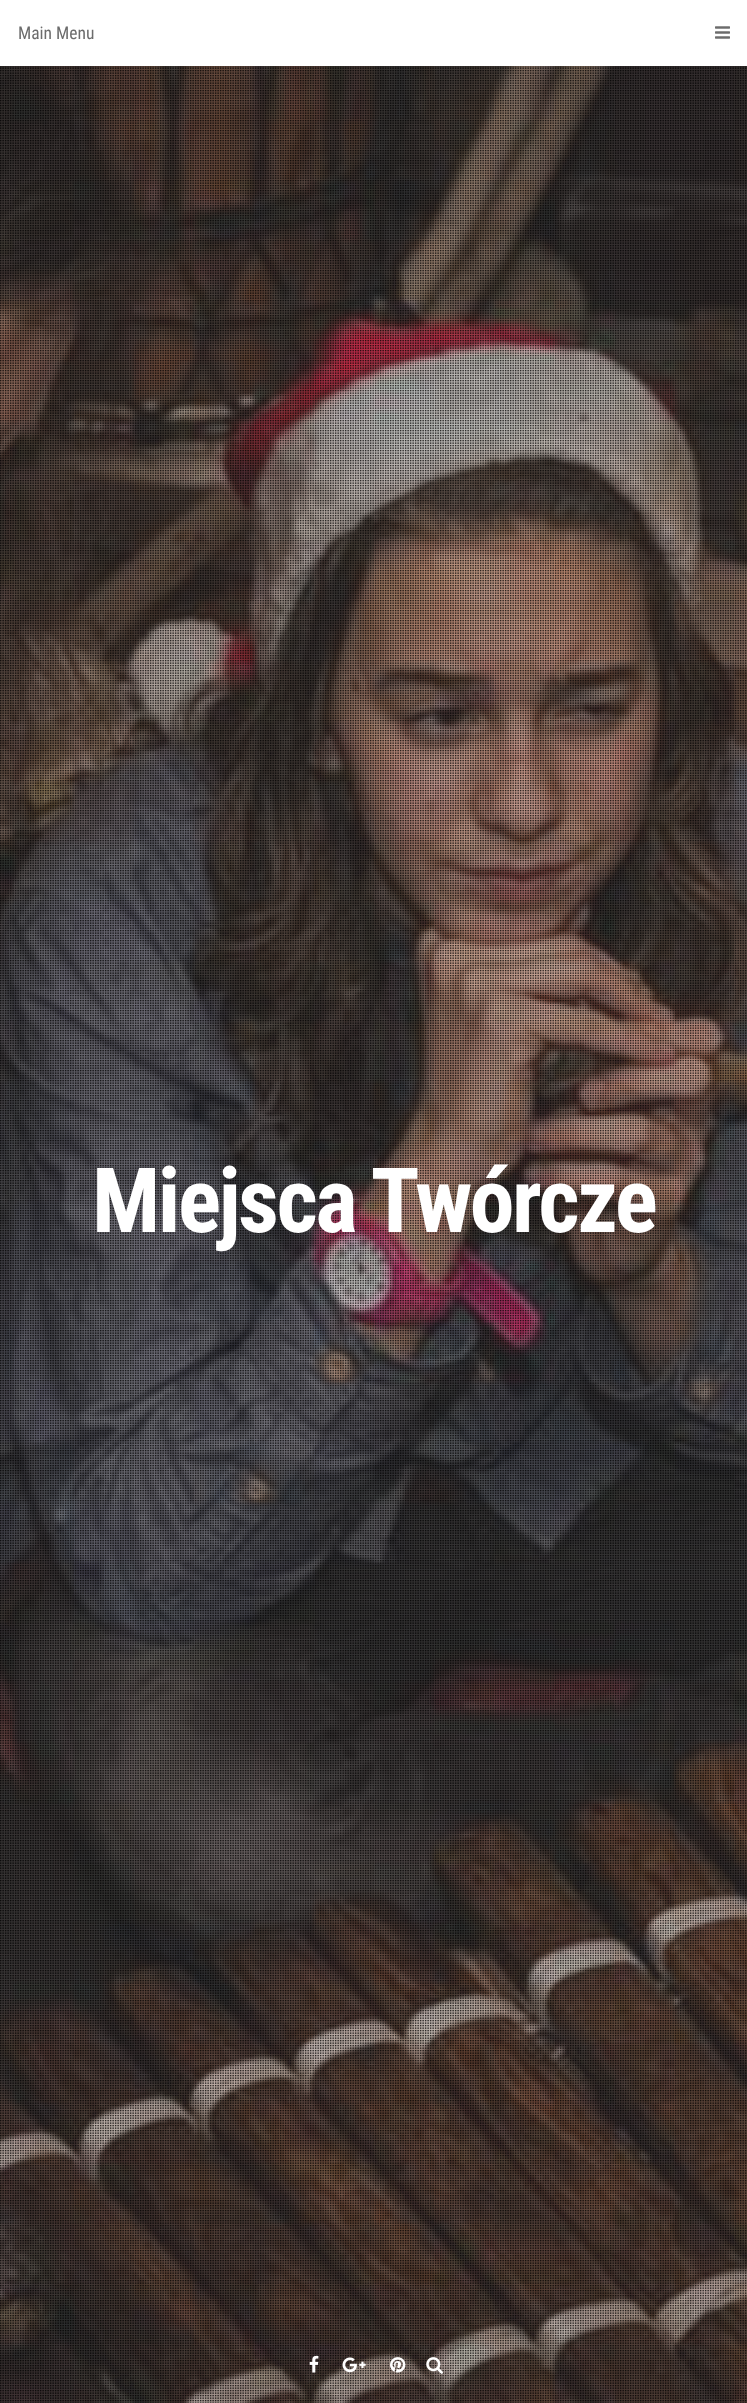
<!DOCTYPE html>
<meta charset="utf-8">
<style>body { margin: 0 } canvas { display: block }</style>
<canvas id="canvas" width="747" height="2403"></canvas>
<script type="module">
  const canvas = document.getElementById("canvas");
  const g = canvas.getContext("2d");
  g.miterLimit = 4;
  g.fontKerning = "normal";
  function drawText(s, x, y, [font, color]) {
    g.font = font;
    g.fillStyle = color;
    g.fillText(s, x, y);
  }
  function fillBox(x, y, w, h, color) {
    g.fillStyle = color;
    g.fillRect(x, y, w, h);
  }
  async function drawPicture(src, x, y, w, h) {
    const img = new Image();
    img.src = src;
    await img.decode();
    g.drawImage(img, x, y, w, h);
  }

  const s1 = ["17.5px Roboto Condensed", "#6C6C6C"];
  const s2 = ["bold 90px Roboto Condensed", "#FFFFFF"];

  fillBox(0, 0, 747, 2403, "#FFFFFF");
  await drawPicture("pic1.png", 0, 66, 747, 2337);
  drawText("Main Menu", 18, 39, s1);
  await drawPicture("pic2.png", 715, 26, 15, 13);
  await drawPicture("pic3.png", 0, 66, 747, 2337);
  g.letterSpacing = "-2.5px";
  drawText("Miejsca Twórcze", 92, 1232, s2);
  await drawPicture("pic4.png", 309, 2355, 10, 18);
  await drawPicture("pic5.png", 342, 2357, 24, 16);
  await drawPicture("pic6.png", 390, 2357, 16, 16);
  await drawPicture("pic7.png", 426, 2357, 17, 17);
</script>
